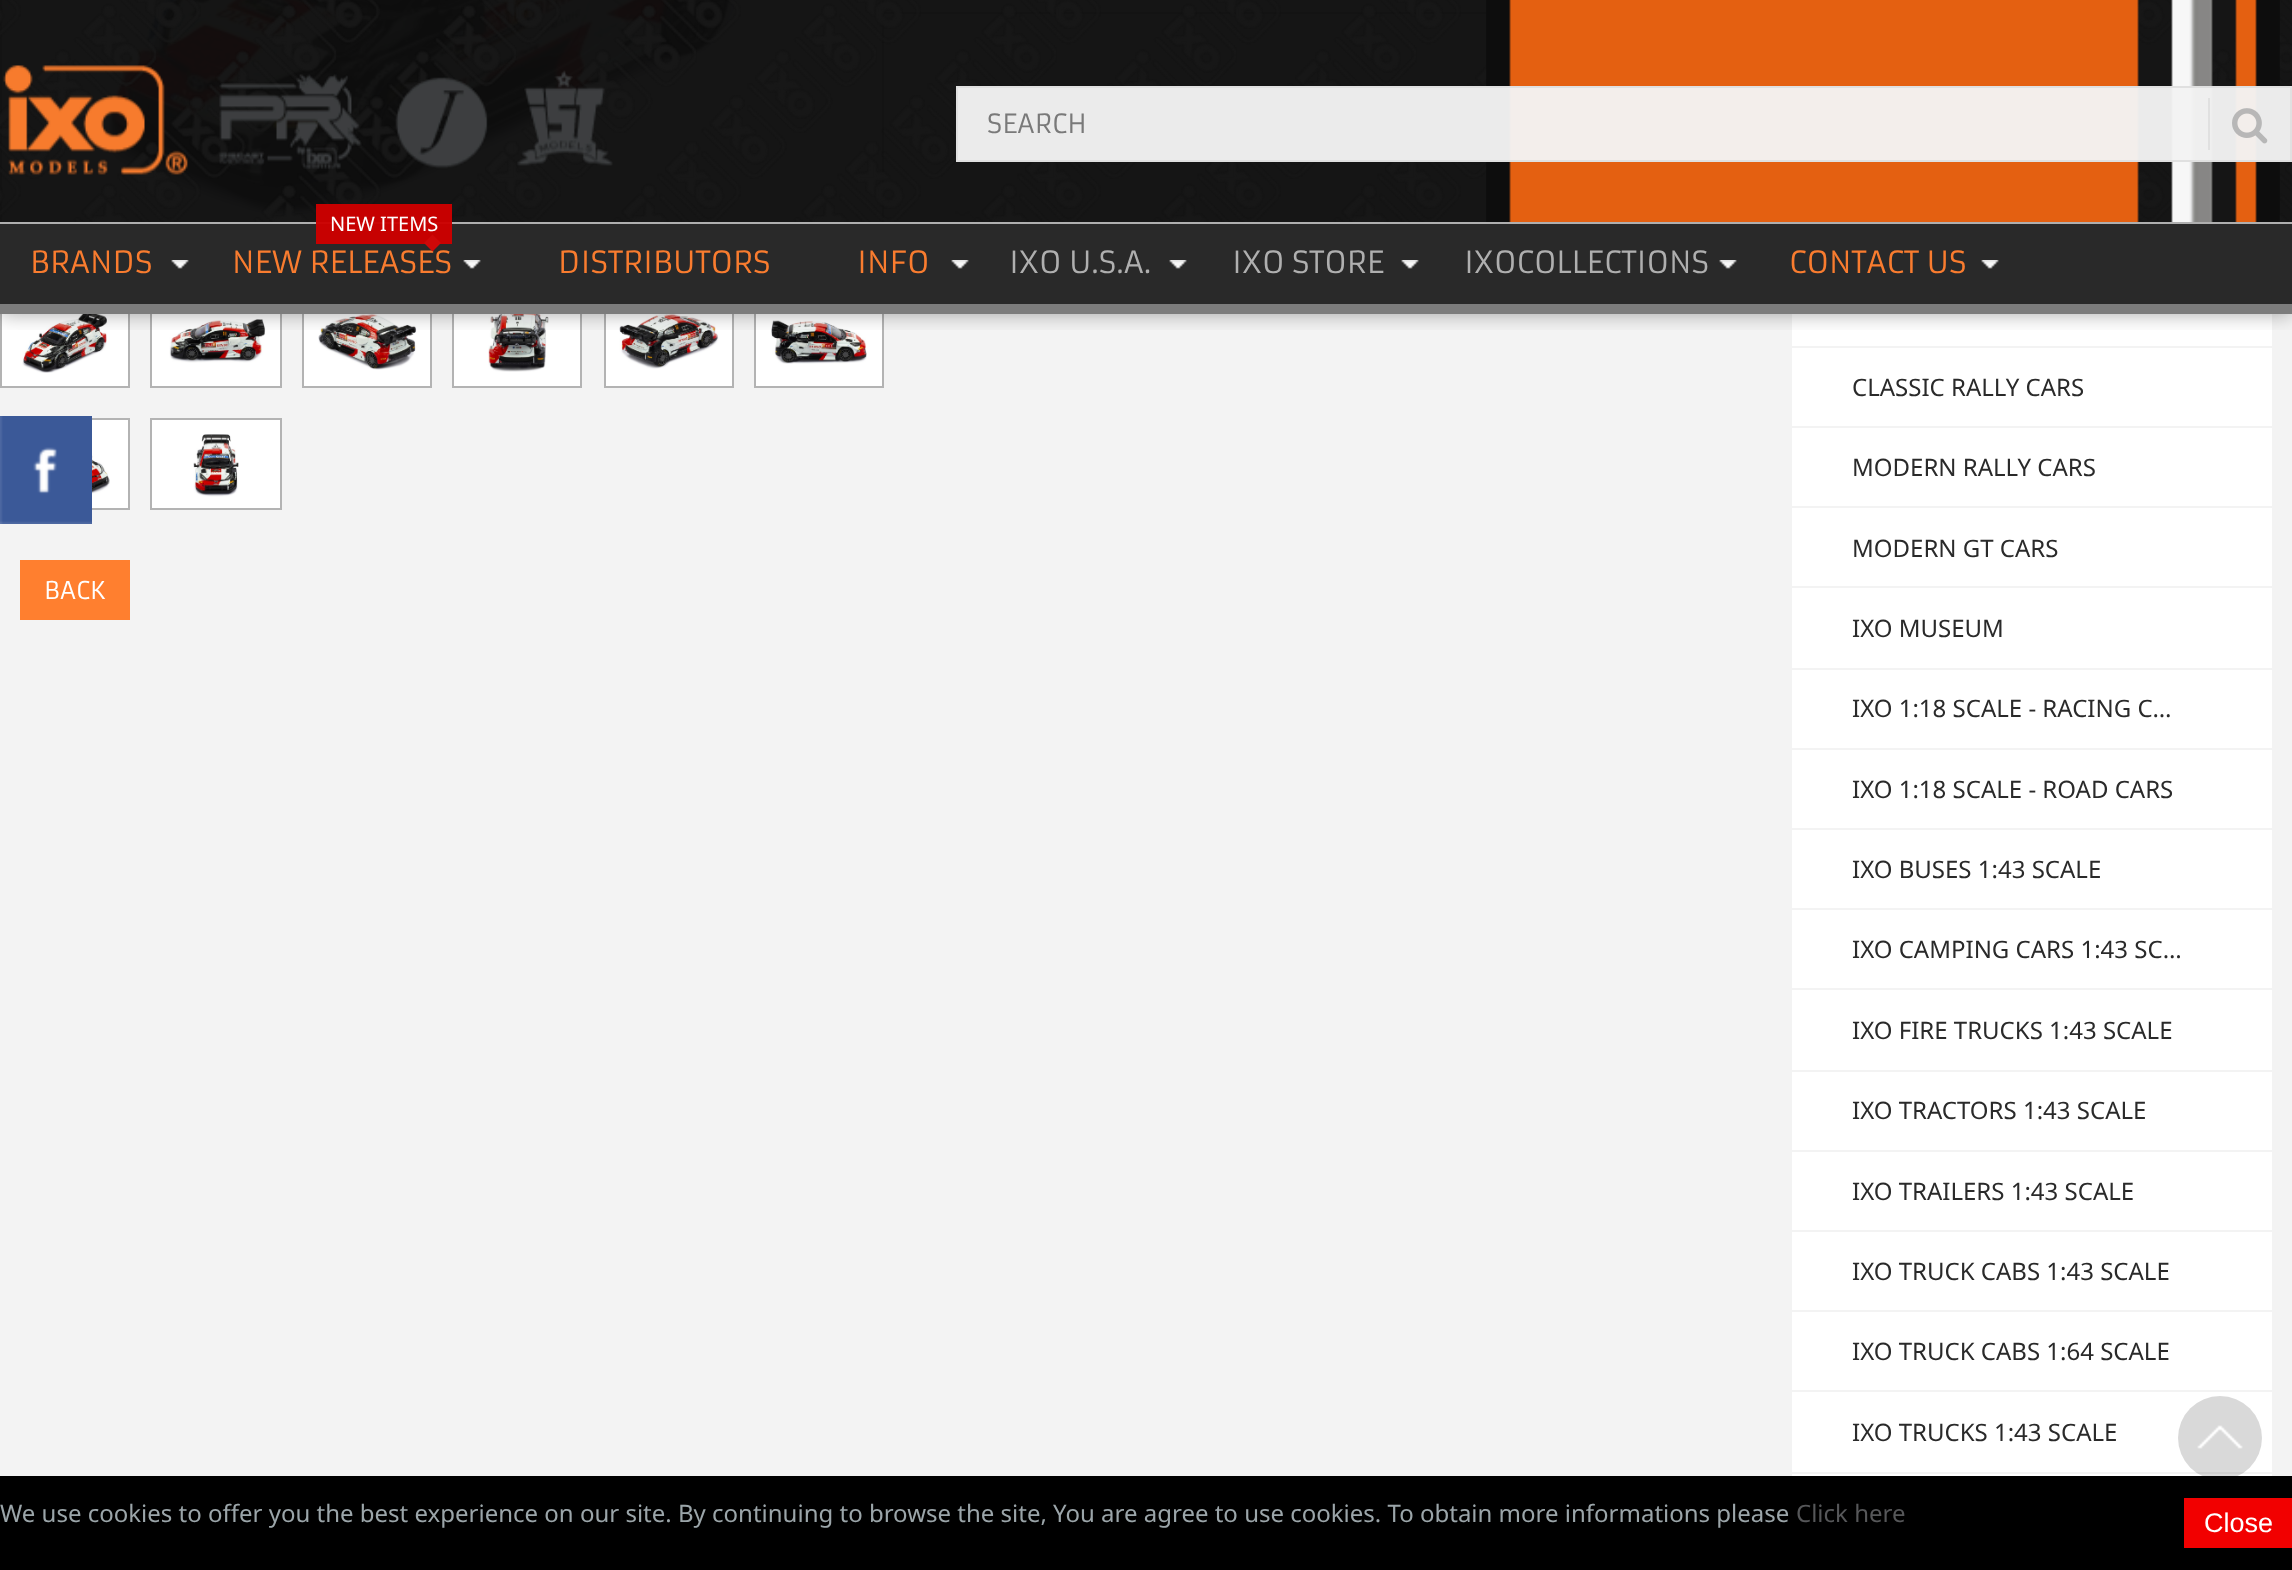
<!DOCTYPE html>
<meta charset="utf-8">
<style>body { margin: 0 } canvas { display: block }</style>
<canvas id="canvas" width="2292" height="1570"></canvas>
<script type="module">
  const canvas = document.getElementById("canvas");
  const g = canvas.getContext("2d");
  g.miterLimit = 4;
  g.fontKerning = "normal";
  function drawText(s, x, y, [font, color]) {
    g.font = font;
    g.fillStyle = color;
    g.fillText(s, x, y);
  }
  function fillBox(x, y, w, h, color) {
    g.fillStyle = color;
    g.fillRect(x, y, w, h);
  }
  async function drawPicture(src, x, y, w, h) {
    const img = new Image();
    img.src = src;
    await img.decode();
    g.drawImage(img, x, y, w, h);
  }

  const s1 = ["26px Armata", "#797979"];
  const s2 = ["30px Armata", "#F97C2F"];
  const s3 = ["20px Noto Sans", "#FFFFFF"];
  const s4 = ["30px Armata", "#AFAFAF"];
  const s5 = ["24px Armata", "#FFFFFF"];
  const s6 = ["24px Noto Sans", "#2A2A2A"];
  const s7 = ["24px Noto Sans", "#9BA5A9"];
  const s8 = ["24px Noto Sans", "#565759"];
  const s9 = ["27px Liberation Sans", "#FFFFFF"];

  fillBox(0, 0, 2292, 1570, "#F3F3F3");
  g.fillStyle = "#FFFFFF";
  g.beginPath();
  g.rect(1, -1, 882, 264);
  g.fill();
  g.strokeStyle = "#B3B3B3";
  g.lineWidth = 2;
  g.stroke();
  await drawPicture("pic9.png", 101, 0, 655, 220);
  g.beginPath();
  g.rect(1, 295, 128, 92);
  g.fill();
  g.stroke();
  await drawPicture("pic10.png", 22, 310, 85, 63);
  g.beginPath();
  g.rect(151, 295, 130, 92);
  g.fill();
  g.stroke();
  await drawPicture("pic11.png", 169, 319, 97, 44);
  g.beginPath();
  g.rect(303, 295, 128, 92);
  g.fill();
  g.stroke();
  await drawPicture("pic12.png", 318, 314, 99, 56);
  g.beginPath();
  g.rect(453, 295, 128, 92);
  g.fill();
  g.stroke();
  await drawPicture("pic13.png", 488, 309, 61, 63);
  g.beginPath();
  g.rect(605, 295, 128, 92);
  g.fill();
  g.stroke();
  await drawPicture("pic14.png", 619, 313, 100, 56);
  g.beginPath();
  g.rect(755, 295, 128, 92);
  g.fill();
  g.stroke();
  await drawPicture("pic15.png", 771, 320, 96, 44);
  fillBox(884, 0, 886, 268, "#FFFFFF");
  fillBox(884, 12, 868, 2, "#B3B3B3");
  await drawPicture("pic18.png", 945, 200, 34, 22);
  fillBox(1792, 0, 480, 1476, "#FFFFFF");
  fillBox(1792, 24, 480, 2, "#F3F3F3");
  fillBox(1792, 104, 480, 2, "#F3F3F3");
  fillBox(1792, 186, 480, 2, "#F3F3F3");
  fillBox(1792, 266, 480, 2, "#F3F3F3");
  g.save();
  g.beginPath();
  g.rect(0, 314, 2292, 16);
  g.clip();
  g.fillStyle = "rgba(0, 0, 0, 0.34)";
  g.filter = "blur(10px)";
  g.beginPath();
  g.rect(0, 0, 2292, 314);
  g.fill();
  g.filter = "none";
  g.restore();
  fillBox(0, 0, 2292, 314, "rgba(13, 13, 13, 0.97)");
  await drawPicture("pic1.png", 0, 0, 2292, 314);
  fillBox(0, 304, 2292, 10, "rgba(128, 128, 128, 0.97)");
  await drawPicture("pic2.png", 1486, 0, 794, 222);
  await drawPicture("pic3.png", 3, 65, 610, 110);
  fillBox(956, 86, 1336, 76, "rgba(243, 243, 243, 0.97)");
  g.strokeStyle = "rgba(223, 223, 223, 0.97)";
  g.strokeRect(957, 87, 1334, 74);
  drawText("SEARCH", 987, 133, s1);
  fillBox(2208, 98, 2, 52, "#E0E0E0");
  await drawPicture("pic4.png", 2232, 108, 36, 36);
  fillBox(0, 224, 2292, 80, "rgba(42, 42, 42, 0.97)");
  fillBox(0, 222, 2292, 2, "#AFAFAF");
  await drawPicture("pic5.png", 171, 260, 18, 9);
  drawText("BRANDS", 30, 273, s2);
  await drawPicture("pic5.png", 463, 260, 18, 9);
  fillBox(316, 204, 136, 40, "rgba(204, 0, 0, 0.97)");
  drawText("NEW ITEMS", 330, 231, s3);
  drawText("NEW RELEASES", 232, 273, s2);
  g.fillStyle = "#CE0808";
  g.beginPath();
  g.moveTo(432.5, 234.5);
  g.lineTo(441, 243);
  g.lineTo(432.5, 251.5);
  g.lineTo(424, 243);
  g.closePath();
  g.fill();
  drawText("DISTRIBUTORS", 558, 273, s2);
  await drawPicture("pic6.png", 951, 260, 18, 9);
  drawText("INFO", 857, 273, s2);
  await drawPicture("pic7.png", 1169, 260, 18, 9);
  drawText("IXO U.S.A.", 1009, 273, s4);
  await drawPicture("pic8.png", 1401, 260, 18, 9);
  drawText("IXO STORE", 1232, 273, s4);
  await drawPicture("pic8.png", 1719, 260, 18, 9);
  drawText("IXOCOLLECTIONS", 1464, 273, s4);
  await drawPicture("pic8.png", 1981, 260, 18, 9);
  drawText("CONTACT US", 1789, 273, s2);
  fillBox(92, 420, 36, 88, "#FFFFFF");
  g.strokeStyle = "#B3B3B3";
  g.strokeRect(1, 419, 128, 90);
  await drawPicture("pic16.png", 92, 434, 18, 61);
  g.beginPath();
  g.rect(151, 419, 130, 90);
  g.fill();
  g.stroke();
  await drawPicture("pic17.png", 193, 434, 46, 63);
  fillBox(20, 560, 110, 60, "#FF7F2F");
  drawText("BACK", 44, 599, s5);
  fillBox(1792, 346, 480, 2, "#F3F3F3");
  drawText("CLASSIC RALLY CARS", 1852, 396, s6);
  fillBox(1792, 426, 480, 2, "#F3F3F3");
  drawText("MODERN RALLY CARS", 1852, 476, s6);
  fillBox(1792, 506, 480, 2, "#F3F3F3");
  drawText("MODERN GT CARS", 1852, 557, s6);
  fillBox(1792, 586, 480, 2, "#F3F3F3");
  drawText("IXO MUSEUM", 1852, 637, s6);
  fillBox(1792, 668, 480, 2, "#F3F3F3");
  drawText("IXO 1:18 SCALE - RACING C…", 1852, 717, s6);
  fillBox(1792, 748, 480, 2, "#F3F3F3");
  drawText("IXO 1:18 SCALE - ROAD CARS", 1852, 798, s6);
  fillBox(1792, 828, 480, 2, "#F3F3F3");
  drawText("IXO BUSES 1:43 SCALE", 1852, 878, s6);
  fillBox(1792, 908, 480, 2, "#F3F3F3");
  drawText("IXO CAMPING CARS 1:43 SC…", 1852, 958, s6);
  fillBox(1792, 988, 480, 2, "#F3F3F3");
  drawText("IXO FIRE TRUCKS 1:43 SCALE", 1852, 1039, s6);
  fillBox(1792, 1070, 480, 2, "#F3F3F3");
  drawText("IXO TRACTORS 1:43 SCALE", 1852, 1119, s6);
  fillBox(1792, 1150, 480, 2, "#F3F3F3");
  drawText("IXO TRAILERS 1:43 SCALE", 1852, 1200, s6);
  fillBox(1792, 1230, 480, 2, "#F3F3F3");
  drawText("IXO TRUCK CABS 1:43 SCALE", 1852, 1280, s6);
  fillBox(1792, 1310, 480, 2, "#F3F3F3");
  drawText("IXO TRUCK CABS 1:64 SCALE", 1852, 1360, s6);
  fillBox(1792, 1390, 480, 2, "#F3F3F3");
  drawText("IXO TRUCKS 1:43 SCALE", 1852, 1441, s6);
  fillBox(1792, 1472, 480, 2, "#F3F3F3");
  await drawPicture("pic19.png", 0, 416, 92, 108);
  g.fillStyle = "rgba(0, 0, 0, 0.15)";
  g.beginPath();
  g.arc(2220, 1438, 42, 0, Math.PI * 2);
  g.fill();
  await drawPicture("pic20.png", 2197, 1425, 46, 24);
  fillBox(0, 1476, 2292, 94, "#000000");
  drawText("We use cookies to offer you the best experience on our site. By continuing to browse the site, You are agree to use cookies. To obtain more informations please", 0, 1522, s7);
  drawText("Click here", 1796, 1522, s8);
  fillBox(2184, 1498, 108, 50, "#F20000");
  drawText("Close", 2204, 1532, s9);
</script>
